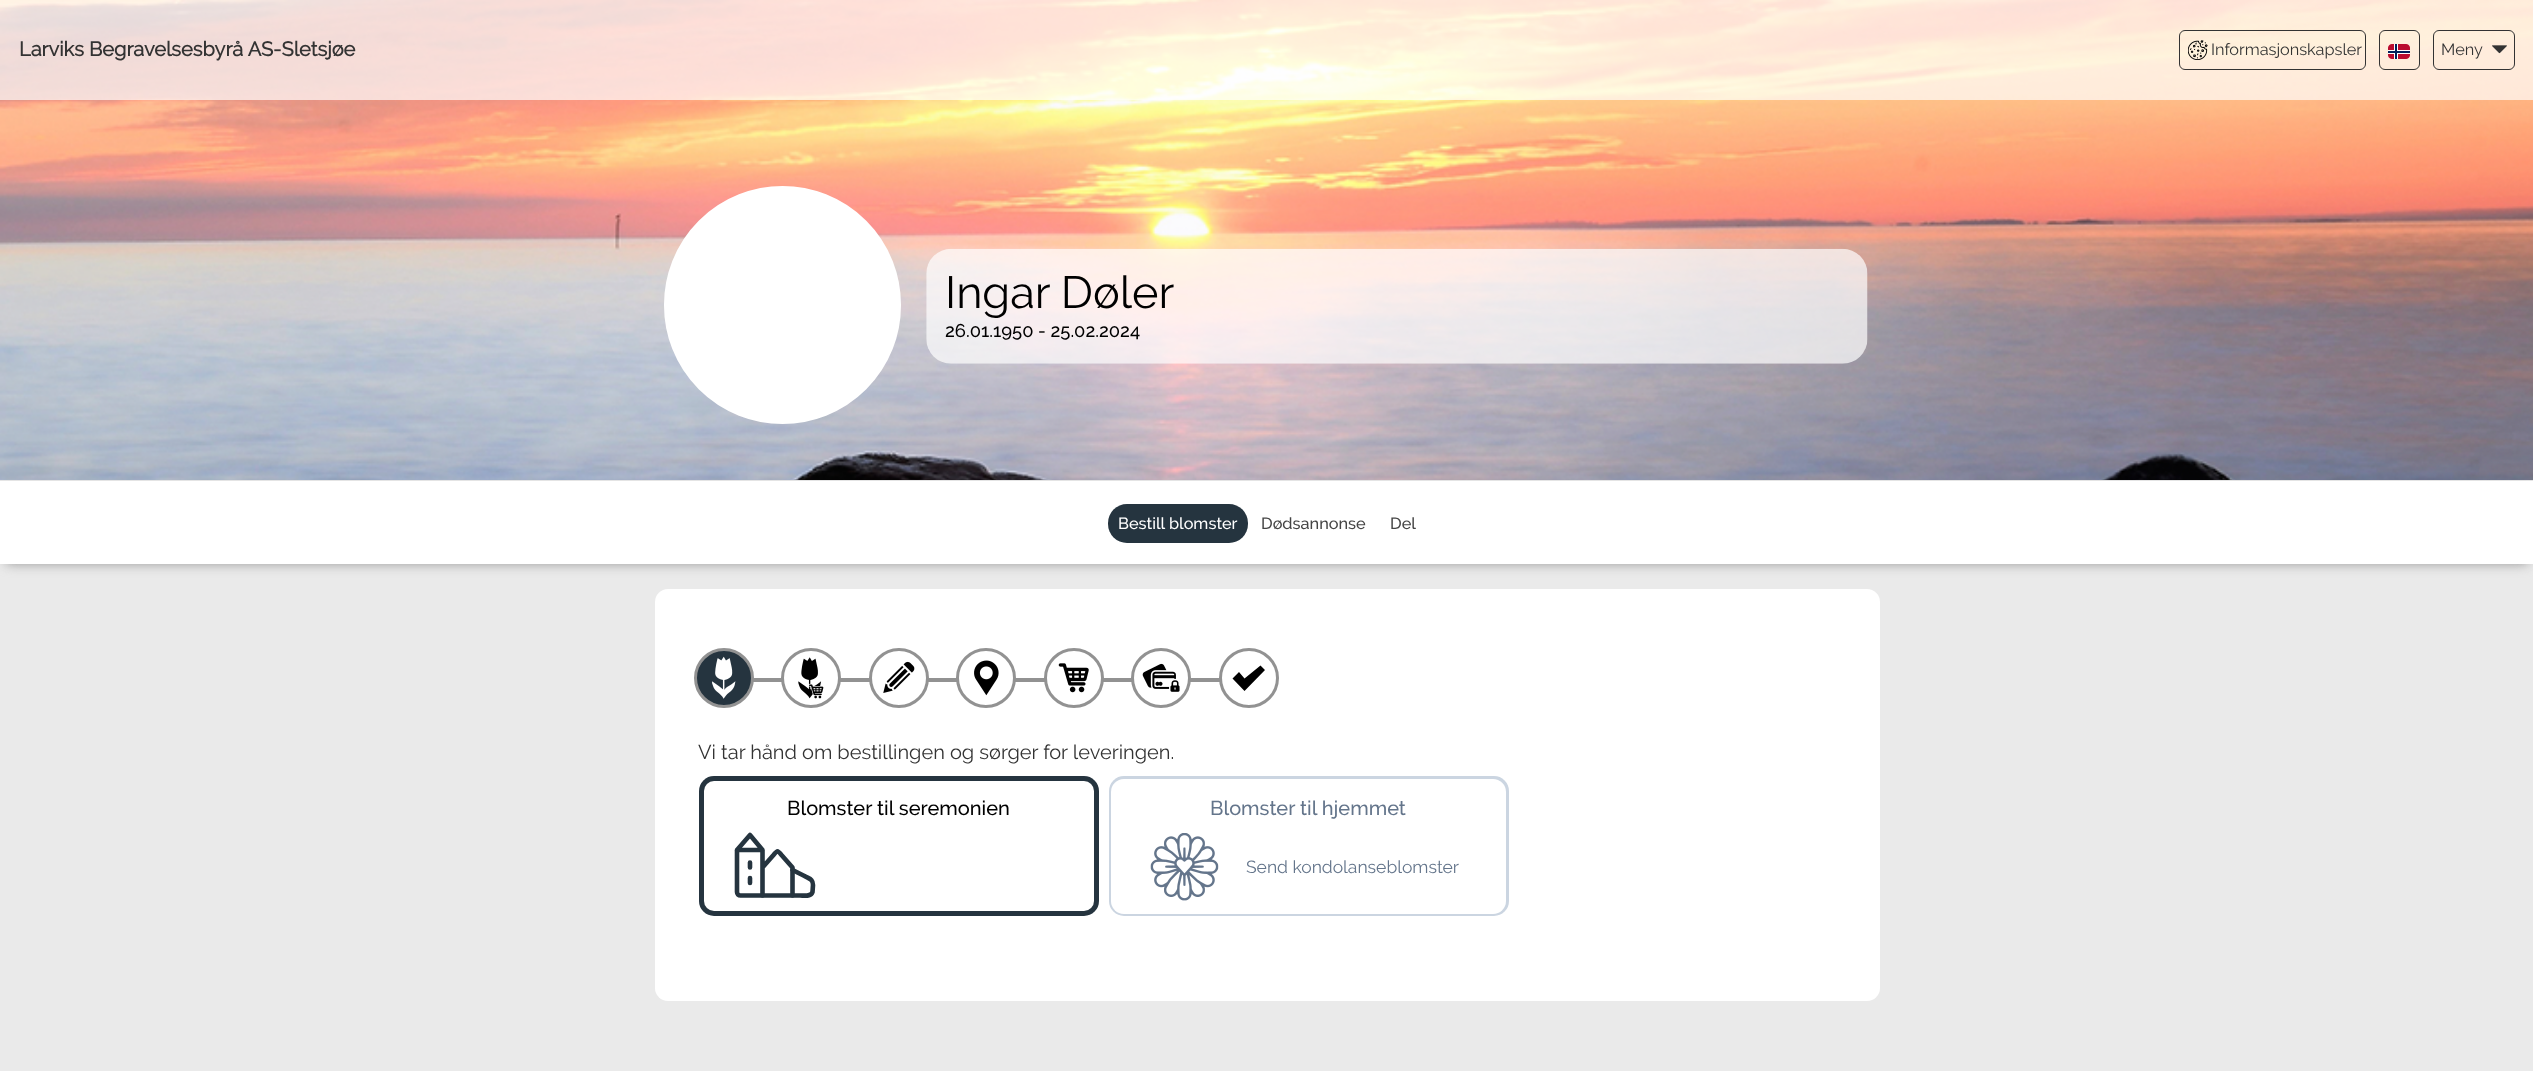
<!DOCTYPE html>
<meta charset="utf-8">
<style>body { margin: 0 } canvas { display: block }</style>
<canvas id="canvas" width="2533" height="1071"></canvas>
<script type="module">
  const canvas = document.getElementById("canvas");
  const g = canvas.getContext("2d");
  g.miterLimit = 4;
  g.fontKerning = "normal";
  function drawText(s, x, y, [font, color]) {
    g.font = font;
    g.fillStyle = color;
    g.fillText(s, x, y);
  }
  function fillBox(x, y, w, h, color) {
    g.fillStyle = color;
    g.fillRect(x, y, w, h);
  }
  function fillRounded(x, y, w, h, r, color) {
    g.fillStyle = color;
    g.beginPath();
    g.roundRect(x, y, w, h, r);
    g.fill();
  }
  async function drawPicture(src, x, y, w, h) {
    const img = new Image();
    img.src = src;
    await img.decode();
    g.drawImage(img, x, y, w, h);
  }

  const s1 = ["bold 20px Raleway", "#333333"];
  const s2 = ["16.25px Raleway", "#333333"];
  const s3 = ["45px Raleway", "#000000"];
  const s4 = ["500 18.4px Raleway", "#000000"];
  const s5 = ["500 16.25px Raleway", "#FFFFFF"];
  const s6 = ["500 16.25px Raleway", "#454545"];
  const s7 = ["20px Raleway", "#333333"];
  const s8 = ["500 20px Raleway", "#000000"];
  const s9 = ["500 20px Raleway", "#64758B"];
  const s10 = ["17.5px Raleway", "#64758B"];

  fillBox(0, 0, 2533, 1071, "#EAEAEA");
  await drawPicture("pic4.png", 0, 0, 2533, 480);
  fillBox(0, 0, 2533, 100, "rgba(255, 255, 255, 0.69)");
  drawText("Larviks Begravelsesbyrå AS-Sletsjøe", 19, 56, s1);
  g.beginPath();
  g.roundRect(2179.5, 30.5, 186, 39, 5.5);
  g.strokeStyle = "#333333";
  g.stroke();
  await drawPicture("pic1.png", 2188, 40, 20, 20);
  drawText("Informasjonskapsler", 2211, 55, s2);
  g.beginPath();
  g.roundRect(2379.5, 30.5, 40, 39, 5.5);
  g.stroke();
  await drawPicture("pic2.png", 2388, 44, 22, 15);
  g.beginPath();
  g.roundRect(2433.5, 30.5, 81, 39, 5.5);
  g.stroke();
  drawText("Meny", 2441, 55, s2);
  await drawPicture("pic3.png", 2492, 45, 15, 9);
  fillBox(0, 480, 2533, 1, "#E5E5E5");
  g.fillStyle = "#FFFFFF";
  g.beginPath();
  g.roundRect(667, 189, 231, 232, 115.5);
  g.fill();
  g.strokeStyle = "#FFFFFF";
  g.lineWidth = 6;
  g.stroke();
  await drawPicture("pic5.png", 926, 248, 942, 116);
  drawText("Ingar Døler", 945, 308, s3);
  drawText("26.01.1950 - 25.02.2024", 945, 337, s4);
  g.fillStyle = "#999999";
  g.filter = "blur(6px)";
  g.beginPath();
  g.rect(6, 494, 2522, 70);
  g.fill();
  g.filter = "none";
  fillBox(0, 481, 2533, 83, "#FFFFFF");
  fillRounded(1108, 504, 140, 39, 19, "#25343F");
  drawText("Bestill blomster", 1118, 529, s5);
  drawText("Dødsannonse", 1261, 529, s6);
  drawText("Del", 1390, 529, s6);
  fillRounded(655, 589, 1225, 412, 13, "#FFFFFF");
  fillBox(753, 678, 467, 4, "#929292");
  g.fillStyle = "#25343F";
  g.beginPath();
  g.arc(724, 678, 28.5, 0, Math.PI * 2);
  g.fill();
  g.strokeStyle = "#929292";
  g.lineWidth = 3;
  g.stroke();
  await drawPicture("pic6.png", 712, 656, 24, 43);
  g.fillStyle = "#FFFFFF";
  g.beginPath();
  g.arc(811, 678, 28.5, 0, Math.PI * 2);
  g.fill();
  g.stroke();
  await drawPicture("pic7.png", 798, 657, 26, 42);
  g.beginPath();
  g.arc(899, 678, 28.5, 0, Math.PI * 2);
  g.fill();
  g.stroke();
  await drawPicture("pic8.png", 883, 661, 32, 32);
  g.beginPath();
  g.arc(986, 678, 28.5, 0, Math.PI * 2);
  g.fill();
  g.stroke();
  await drawPicture("pic9.png", 974, 660, 25, 36);
  g.beginPath();
  g.arc(1074, 678, 28.5, 0, Math.PI * 2);
  g.fill();
  g.stroke();
  await drawPicture("pic10.png", 1058, 663, 31, 30);
  g.beginPath();
  g.arc(1161, 678, 28.5, 0, Math.PI * 2);
  g.fill();
  g.stroke();
  await drawPicture("pic11.png", 1142, 663, 38, 29);
  g.beginPath();
  g.arc(1249, 678, 28.5, 0, Math.PI * 2);
  g.fill();
  g.stroke();
  g.fillStyle = "#000000";
  g.beginPath();
  g.moveTo(1244.5, 678.5);
  g.lineTo(1239, 672);
  g.lineTo(1232.5, 678.5);
  g.lineTo(1244.5, 691);
  g.lineTo(1265, 670);
  g.lineTo(1260.5, 665.5);
  g.closePath();
  g.fill();
  drawText("Vi tar hånd om bestillingen og sørger for leveringen.", 698, 759, s7);
  fillRounded(699, 776, 400, 140, 15, "#25343F");
  fillRounded(704, 781, 390, 130, 10, "#FFFFFF");
  drawText("Blomster til seremonien", 787, 815, s8);
  g.beginPath();
  g.moveTo(737, 850);
  g.lineTo(762.5, 850);
  g.lineTo(762.5, 895.5);
  g.lineTo(740.5, 895.5);
  g.bezierCurveTo(738.5, 895.5, 737, 894, 737, 892);
  g.closePath();
  g.moveTo(737, 850);
  g.lineTo(750, 835);
  g.lineTo(762.5, 850);
  g.moveTo(750, 862.5);
  g.lineTo(750, 867.5);
  g.moveTo(750, 878);
  g.lineTo(750, 883);
  g.moveTo(762.5, 895.5);
  g.lineTo(762.5, 867.5);
  g.lineTo(773.5, 855);
  g.bezierCurveTo(777.5, 850, 777.5, 850, 781.5, 855);
  g.lineTo(792.5, 867.5);
  g.lineTo(792.5, 895.5);
  g.strokeStyle = "#25343F";
  g.lineWidth = 4.6;
  g.lineCap = "round";
  g.lineJoin = "round";
  g.stroke();
  g.beginPath();
  g.moveTo(792.5, 870);
  g.lineTo(804.5, 876);
  g.bezierCurveTo(809.5, 879, 813, 879, 813, 885);
  g.lineTo(812.5, 892);
  g.bezierCurveTo(811, 897, 804, 895.5, 800, 895.5);
  g.lineTo(762.5, 895.5);
  g.stroke();
  fillRounded(1109, 776, 400, 140, 15, "#CBD5E1");
  fillRounded(1111, 779, 395, 135, 13, "#FFFFFF");
  drawText("Blomster til hjemmet", 1210, 815, s9);
  await drawPicture("pic12.png", 1150, 833, 69, 68);
  drawText("Send kondolanseblomster", 1246, 873, s10);
</script>
